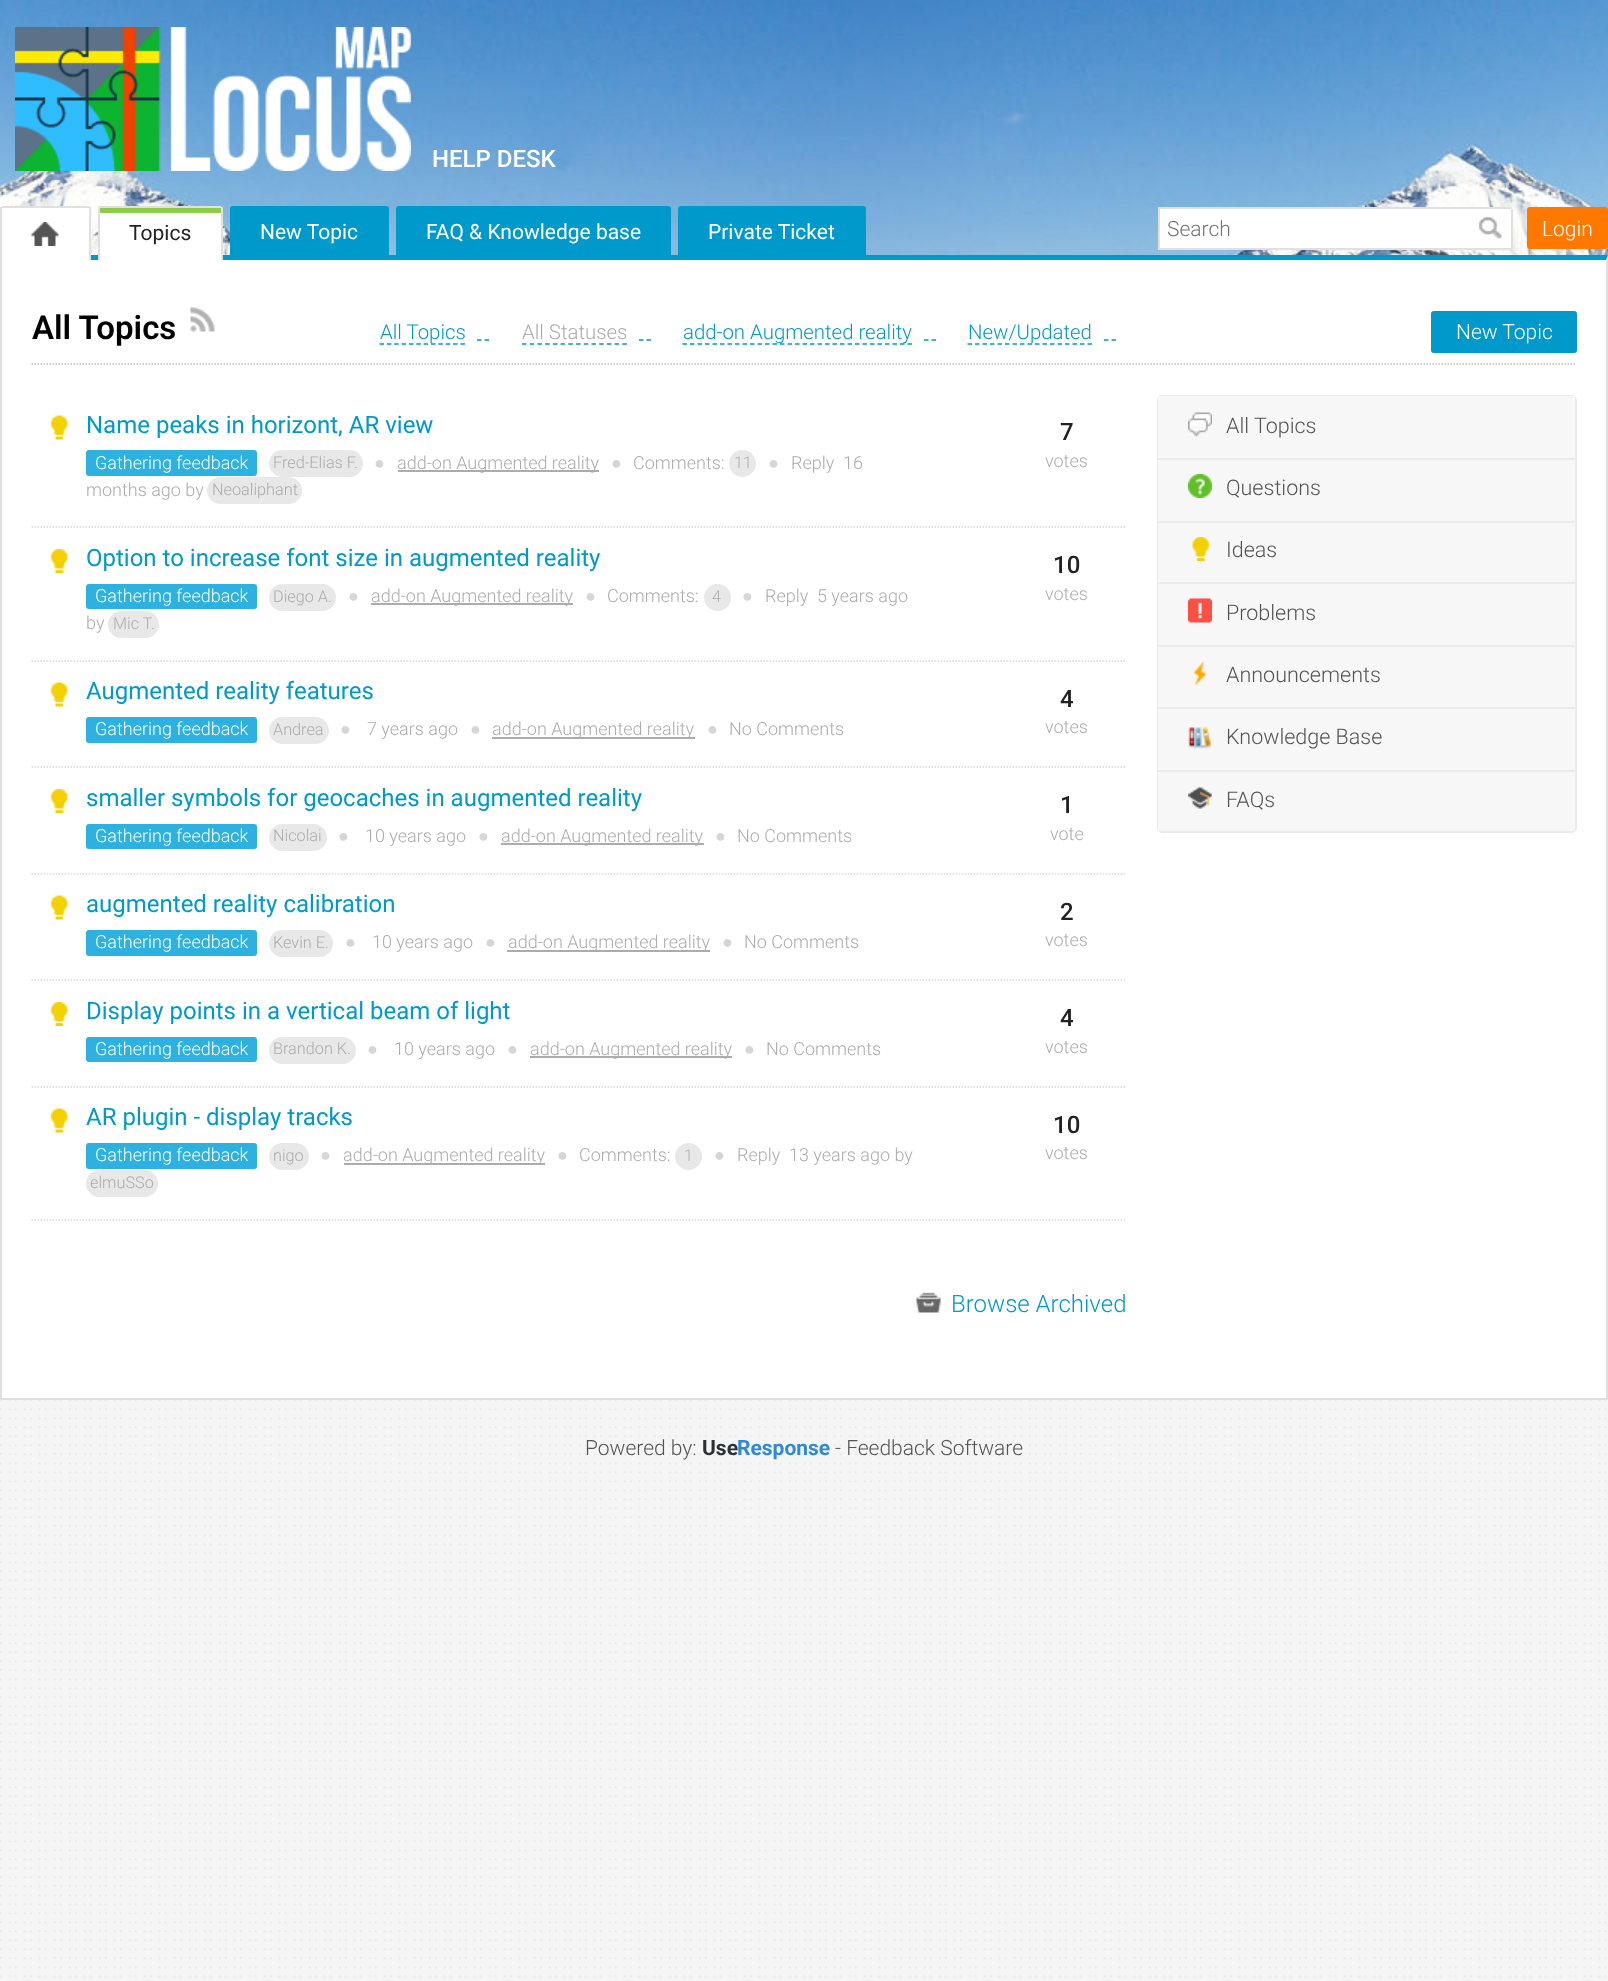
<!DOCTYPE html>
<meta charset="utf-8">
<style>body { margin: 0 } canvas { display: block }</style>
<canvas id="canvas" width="1608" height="1981"></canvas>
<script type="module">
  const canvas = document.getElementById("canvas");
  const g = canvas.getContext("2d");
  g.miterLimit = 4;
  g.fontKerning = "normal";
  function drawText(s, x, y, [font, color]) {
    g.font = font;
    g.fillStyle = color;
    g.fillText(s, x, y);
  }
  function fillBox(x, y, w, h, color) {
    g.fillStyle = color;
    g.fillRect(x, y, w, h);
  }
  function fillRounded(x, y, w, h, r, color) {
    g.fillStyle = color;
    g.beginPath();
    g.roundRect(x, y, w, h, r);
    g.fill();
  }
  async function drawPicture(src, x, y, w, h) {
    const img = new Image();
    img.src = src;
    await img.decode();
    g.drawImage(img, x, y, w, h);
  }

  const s1 = ["500 24px Roboto", "#FFFFFF"];
  const s2 = ["21px Roboto", "#222222"];
  const s3 = ["21px Roboto", "#FFFFFF"];
  const s4 = ["300 21px Roboto", "#757575"];
  const s5 = ["300 21px Roboto", "#FFFFFF"];
  const s6 = ["600 33px Roboto", "#000000"];
  const s7 = ["300 20.4px Roboto", "#0099CC"];
  const s8 = ["300 20.4px Roboto", "#ACACAC"];
  const s9 = ["24px Roboto", "#0099CC"];
  const s10 = ["300 18px Roboto", "#FFFFFF"];
  const s11 = ["300 16.25px Roboto", "#ACACAC"];
  const s12 = ["18px Liberation Sans", "#D6D6D6"];
  const s13 = ["300 18px Roboto", "#ACACAC"];
  const s14 = ["500 24px Roboto", "#222222"];
  const s15 = ["300 24px Roboto", "#0099CC"];
  const s16 = ["300 21.5px Roboto", "#555555"];
  const s17 = ["300 21px Roboto", "#555555"];
  const s18 = ["bold 21px Roboto", "#2B3236"];
  const s19 = ["bold 21px Roboto", "#2F89DA"];

  fillBox(0, 0, 1608, 1981, "#FFFFFF");
  await drawPicture("pic1.png", 0, 1400, 1608, 581);
  await drawPicture("pic2.png", 0, 0, 1608, 260);
  await drawPicture("pic3.png", 15, 27, 396, 144);
  drawText("HELP DESK", 432, 167, s1);
  g.fillStyle = "#0099CC";
  g.beginPath();
  g.moveTo(0, 255);
  g.lineTo(1608, 255);
  g.lineTo(1606, 260);
  g.lineTo(2, 260);
  g.closePath();
  g.fill();
  g.fillStyle = "#E0E0E0";
  g.beginPath();
  g.moveTo(1608, 255);
  g.lineTo(1608, 1400);
  g.lineTo(1606, 1398);
  g.lineTo(1606, 260);
  g.closePath();
  g.fill();
  fillBox(0, 1398, 1608, 2, "#E0E0E0");
  g.beginPath();
  g.moveTo(0, 1400);
  g.lineTo(0, 255);
  g.lineTo(2, 260);
  g.lineTo(2, 1398);
  g.closePath();
  g.fill();
  g.fillStyle = "#FFFFFF";
  g.beginPath();
  g.roundRect(0, 206, 90, 54, [3, 3, 0, 0]);
  g.fill();
  fillBox(2, 206, 87, 2, "#E0E0E0");
  fillBox(89, 207, 2, 53, "#E0E0E0");
  fillBox(0, 207, 2, 53, "#E0E0E0");
  await drawPicture("pic4.png", 31, 222, 28, 24);
  fillBox(98, 208, 124, 5, "#8CCC47");
  fillBox(100, 213, 121, 47, "#FFFFFF");
  fillBox(99, 206, 122, 2, "#E0E0E0");
  fillBox(221, 207, 2, 53, "#E0E0E0");
  fillBox(98, 207, 2, 53, "#E0E0E0");
  drawText("Topics", 129, 240, s2);
  g.fillStyle = "#0099CC";
  g.beginPath();
  g.roundRect(230, 206, 159, 54, [3, 3, 0, 0]);
  g.fill();
  drawText("New Topic", 260, 239, s3);
  g.fillStyle = "#0099CC";
  g.beginPath();
  g.roundRect(396, 206, 275, 54, [3, 3, 0, 0]);
  g.fill();
  drawText("FAQ & Knowledge base", 426, 239, s3);
  g.fillStyle = "#0099CC";
  g.beginPath();
  g.roundRect(678, 206, 188, 54, [3, 3, 0, 0]);
  g.fill();
  drawText("Private Ticket", 708, 239, s3);
  fillBox(1160, 209, 310, 39, "#FFFFFF");
  fillBox(1158, 207, 354, 2, "#E0E0E0");
  fillBox(1158, 248, 354, 2, "#E0E0E0");
  fillBox(1158, 207, 2, 42, "#E0E0E0");
  drawText("Search", 1167, 236, s4);
  g.fillStyle = "#FFFFFF";
  g.beginPath();
  g.roundRect(1470, 207, 42, 42, [0, 3, 3, 0]);
  g.fill();
  fillBox(1470, 207, 41, 2, "#E0E0E0");
  fillBox(1511, 209, 2, 39, "#E0E0E0");
  fillBox(1470, 248, 41, 1, "#E0E0E0");
  await drawPicture("pic5.png", 1478, 217, 24, 22);
  fillRounded(1527, 207, 81, 42, 3, "#FF7800");
  drawText("Login", 1542, 236, s5);
  g.beginPath();
  g.moveTo(31.5, 364);
  g.lineTo(1576.5, 364);
  g.strokeStyle = "#BFBFBF";
  g.lineWidth = 1.5;
  g.setLineDash([1.5, 1.5]);
  g.stroke();
  drawText("All Topics", 32, 339, s6);
  await drawPicture("pic6.png", 190, 307, 25, 25);
  g.beginPath();
  g.moveTo(379.5, 344);
  g.lineTo(465, 344);
  g.strokeStyle = "#0099CC";
  g.setLineDash([4.5, 2.86]);
  g.stroke();
  drawText("All Topics", 380, 339, s7);
  g.beginPath();
  g.moveTo(477, 340);
  g.lineTo(481.5, 340);
  g.moveTo(484.5, 340);
  g.lineTo(489, 340);
  g.setLineDash([]);
  g.stroke();
  drawText("All Statuses", 522, 339, s8);
  g.beginPath();
  g.moveTo(522, 344);
  g.lineTo(627, 344);
  g.setLineDash([4.5, 3.22]);
  g.stroke();
  g.beginPath();
  g.moveTo(639, 340);
  g.lineTo(643.5, 340);
  g.moveTo(646.5, 340);
  g.lineTo(651, 340);
  g.setLineDash([]);
  g.stroke();
  g.beginPath();
  g.moveTo(682.5, 344);
  g.lineTo(912, 344);
  g.setLineDash([4.5, 3]);
  g.stroke();
  drawText("add-on Augmented reality", 683, 339, s7);
  g.beginPath();
  g.moveTo(924, 340);
  g.lineTo(928.5, 340);
  g.moveTo(931.5, 340);
  g.lineTo(936, 340);
  g.setLineDash([]);
  g.stroke();
  g.beginPath();
  g.moveTo(967.5, 344);
  g.lineTo(1092, 344);
  g.setLineDash([4.5, 3]);
  g.stroke();
  drawText("New/Updated", 968, 339, s7);
  g.beginPath();
  g.moveTo(1104, 340);
  g.lineTo(1108.5, 340);
  g.moveTo(1111.5, 340);
  g.lineTo(1116, 340);
  g.setLineDash([]);
  g.stroke();
  g.beginPath();
  g.roundRect(1432, 312, 144, 40, 2);
  g.fill();
  g.lineWidth = 2;
  g.stroke();
  drawText("New Topic", 1456, 339, s5);
  g.beginPath();
  g.moveTo(31.5, 527);
  g.lineTo(1126.5, 527);
  g.strokeStyle = "#D9D9D9";
  g.lineWidth = 1.5;
  g.setLineDash([1.5, 1.5]);
  g.stroke();
  await drawPicture("pic7.png", 50, 415, 18, 25);
  drawText("Name peaks in horizont, AR view", 86, 433, s9);
  fillRounded(86, 450, 171, 26, 3, "#2CB1E1");
  drawText("Gathering feedback", 95, 469, s10);
  fillRounded(269, 450, 94, 27, 13.5, "#E8E8E8");
  drawText("Fred-Elias F.", 273, 468, s11);
  drawText("●", 374, 469, s12);
  fillBox(398, 470, 201, 2, "#ACACAC");
  drawText("add-on Augmented reality", 397, 469, s13);
  drawText("●", 611, 469, s12);
  drawText("Comments:", 633, 469, s13);
  g.fillStyle = "#E8E8E8";
  g.beginPath();
  g.arc(742.5, 463.5, 13.5, 0, Math.PI * 2);
  g.fill();
  drawText("11", 734, 468, s11);
  drawText("●", 768, 469, s12);
  drawText("Reply", 791, 469, s13);
  drawText("16", 843, 469, s13);
  drawText("months ago by", 86, 496, s13);
  fillRounded(207, 477, 95, 27, 13.5, "#E8E8E8");
  drawText("Neoaliphant", 212, 495, s11);
  drawText("7", 1060, 440, s14);
  drawText("votes", 1045, 467, s13);
  g.beginPath();
  g.moveTo(31.5, 661);
  g.lineTo(1126.5, 661);
  g.stroke();
  await drawPicture("pic8.png", 50, 549, 18, 24);
  drawText("Option to increase font size in augmented reality", 86, 566, s9);
  fillRounded(86, 584, 171, 25, 3, "#2CB1E1");
  drawText("Gathering feedback", 95, 602, s10);
  fillRounded(269, 584, 67, 27, 13.5, "#E8E8E8");
  drawText("Diego A.", 273, 602, s11);
  drawText("●", 348, 602, s12);
  fillBox(371, 603, 202, 2, "#ACACAC");
  drawText("add-on Augmented reality", 371, 602, s13);
  drawText("●", 585, 602, s12);
  drawText("Comments:", 607, 602, s13);
  g.fillStyle = "#E8E8E8";
  g.beginPath();
  g.arc(717.5, 597.5, 13.5, 0, Math.PI * 2);
  g.fill();
  drawText("4", 712, 602, s11);
  drawText("●", 742, 602, s12);
  drawText("Reply", 765, 602, s13);
  drawText("5 years ago", 817, 602, s13);
  drawText("by", 86, 629, s13);
  fillRounded(108, 611, 51, 27, 13.5, "#E8E8E8");
  drawText("Mic T.", 113, 629, s11);
  drawText("10", 1053, 573, s14);
  drawText("votes", 1045, 600, s13);
  g.beginPath();
  g.moveTo(31.5, 767);
  g.lineTo(1126.5, 767);
  g.stroke();
  await drawPicture("pic7.png", 50, 682, 18, 25);
  drawText("Augmented reality features", 86, 699, s9);
  fillRounded(86, 717, 171, 26, 3, "#2CB1E1");
  drawText("Gathering feedback", 95, 735, s10);
  fillRounded(269, 717, 60, 27, 13.5, "#E8E8E8");
  drawText("Andrea", 273, 735, s11);
  drawText("●", 340, 735, s12);
  drawText("7 years ago", 367, 735, s13);
  drawText("●", 470, 735, s12);
  fillBox(492, 737, 203, 2, "#ACACAC");
  drawText("add-on Augmented reality", 492, 735, s13);
  drawText("●", 707, 735, s12);
  drawText("No Comments", 729, 735, s13);
  drawText("4", 1060, 707, s14);
  drawText("votes", 1045, 733, s13);
  g.beginPath();
  g.moveTo(31.5, 874);
  g.lineTo(1126.5, 874);
  g.stroke();
  await drawPicture("pic8.png", 50, 789, 18, 24);
  drawText("smaller symbols for geocaches in augmented reality", 86, 806, s9);
  fillRounded(86, 824, 171, 25, 3, "#2CB1E1");
  drawText("Gathering feedback", 95, 842, s10);
  fillRounded(269, 824, 58, 27, 13.5, "#E8E8E8");
  drawText("Nicolai", 273, 841, s11);
  drawText("●", 338, 842, s12);
  drawText("10 years ago", 365, 842, s13);
  drawText("●", 478, 842, s12);
  fillBox(501, 843, 203, 2, "#ACACAC");
  drawText("add-on Augmented reality", 501, 842, s13);
  drawText("●", 715, 842, s12);
  drawText("No Comments", 737, 842, s13);
  drawText("1", 1060, 813, s14);
  drawText("vote", 1050, 840, s13);
  g.beginPath();
  g.moveTo(31.5, 980);
  g.lineTo(1126.5, 980);
  g.stroke();
  await drawPicture("pic7.png", 50, 895, 18, 25);
  drawText("augmented reality calibration", 86, 912, s9);
  fillRounded(86, 930, 171, 26, 3, "#2CB1E1");
  drawText("Gathering feedback", 95, 948, s10);
  fillRounded(269, 930, 64, 27, 13.5, "#E8E8E8");
  drawText("Kevin E.", 273, 948, s11);
  drawText("●", 345, 948, s12);
  drawText("10 years ago", 372, 948, s13);
  drawText("●", 485, 948, s12);
  fillBox(507, 950, 203, 2, "#ACACAC");
  drawText("add-on Augmented reality", 508, 948, s13);
  drawText("●", 722, 948, s12);
  drawText("No Comments", 744, 948, s13);
  drawText("2", 1060, 920, s14);
  drawText("votes", 1045, 946, s13);
  g.beginPath();
  g.moveTo(31.5, 1087);
  g.lineTo(1126.5, 1087);
  g.stroke();
  await drawPicture("pic8.png", 50, 1002, 18, 24);
  drawText("Display points in a vertical beam of light", 86, 1019, s9);
  fillRounded(86, 1037, 171, 25, 3, "#2CB1E1");
  drawText("Gathering feedback", 95, 1055, s10);
  fillRounded(269, 1037, 87, 27, 13.5, "#E8E8E8");
  drawText("Brandon K.", 273, 1054, s11);
  drawText("●", 367, 1055, s12);
  drawText("10 years ago", 394, 1055, s13);
  drawText("●", 507, 1055, s12);
  fillBox(530, 1056, 202, 2, "#ACACAC");
  drawText("add-on Augmented reality", 530, 1055, s13);
  drawText("●", 744, 1055, s12);
  drawText("No Comments", 766, 1055, s13);
  drawText("4", 1060, 1026, s14);
  drawText("votes", 1045, 1053, s13);
  g.beginPath();
  g.moveTo(31.5, 1220);
  g.lineTo(1126.5, 1220);
  g.stroke();
  await drawPicture("pic7.png", 50, 1108, 18, 25);
  drawText("AR plugin - display tracks", 86, 1125, s9);
  fillRounded(86, 1143, 171, 26, 3, "#2CB1E1");
  drawText("Gathering feedback", 95, 1161, s10);
  fillRounded(269, 1143, 40, 27, 13.5, "#E8E8E8");
  drawText("nigo", 273, 1161, s11);
  drawText("●", 320, 1161, s12);
  fillBox(344, 1163, 201, 2, "#ACACAC");
  drawText("add-on Augmented reality", 343, 1161, s13);
  drawText("●", 557, 1161, s12);
  drawText("Comments:", 579, 1161, s13);
  g.fillStyle = "#E8E8E8";
  g.beginPath();
  g.arc(688.5, 1156.5, 13.5, 0, Math.PI * 2);
  g.fill();
  drawText("1", 684, 1161, s11);
  drawText("●", 714, 1161, s12);
  drawText("Reply", 737, 1161, s13);
  drawText("13 years ago by", 789, 1161, s13);
  fillRounded(86, 1170, 72, 27, 13.5, "#E8E8E8");
  drawText("elmuSSo", 90, 1188, s11);
  drawText("10", 1053, 1133, s14);
  drawText("votes", 1045, 1159, s13);
  await drawPicture("pic9.png", 916, 1292, 25, 21);
  drawText("Browse Archived", 951, 1312, s15);
  g.beginPath();
  g.roundRect(1158, 396, 418, 436, 4);
  g.strokeStyle = "#EBEBEB";
  g.lineWidth = 2;
  g.setLineDash([]);
  g.stroke();
  fillBox(1158, 396, 417, 62, "#F7F7F7");
  await drawPicture("pic10.png", 1188, 412, 24, 25);
  drawText("All Topics", 1226, 433, s16);
  fillBox(1158, 460, 417, 61, "#F7F7F7");
  fillBox(1158, 458, 417, 2, "#EBEBEB");
  await drawPicture("pic11.png", 1188, 474, 24, 24);
  drawText("Questions", 1226, 495, s16);
  fillBox(1158, 523, 417, 59, "#F7F7F7");
  fillBox(1158, 521, 417, 2, "#EBEBEB");
  await drawPicture("pic12.png", 1192, 537, 18, 24);
  drawText("Ideas", 1226, 557, s16);
  fillBox(1158, 584, 417, 61, "#F7F7F7");
  fillBox(1158, 582, 417, 2, "#EBEBEB");
  await drawPicture("pic13.png", 1188, 598, 24, 25);
  drawText("Problems", 1226, 620, s16);
  fillBox(1158, 647, 417, 60, "#F7F7F7");
  fillBox(1158, 645, 417, 2, "#EBEBEB");
  await drawPicture("pic14.png", 1193, 661, 14, 25);
  drawText("Announcements", 1226, 682, s16);
  fillBox(1158, 709, 417, 61, "#F7F7F7");
  fillBox(1158, 707, 417, 2, "#EBEBEB");
  await drawPicture("pic15.png", 1188, 727, 24, 22);
  drawText("Knowledge Base", 1226, 744, s16);
  fillBox(1158, 772, 417, 59, "#F7F7F7");
  fillBox(1158, 770, 417, 2, "#EBEBEB");
  await drawPicture("pic16.png", 1188, 787, 24, 22);
  drawText("FAQs", 1226, 807, s16);
  drawText("Powered by:", 585, 1455, s17);
  drawText("Use", 702, 1455, s18);
  drawText("Response", 737, 1455, s19);
  drawText("- Feedback Software", 835, 1455, s17);
</script>
